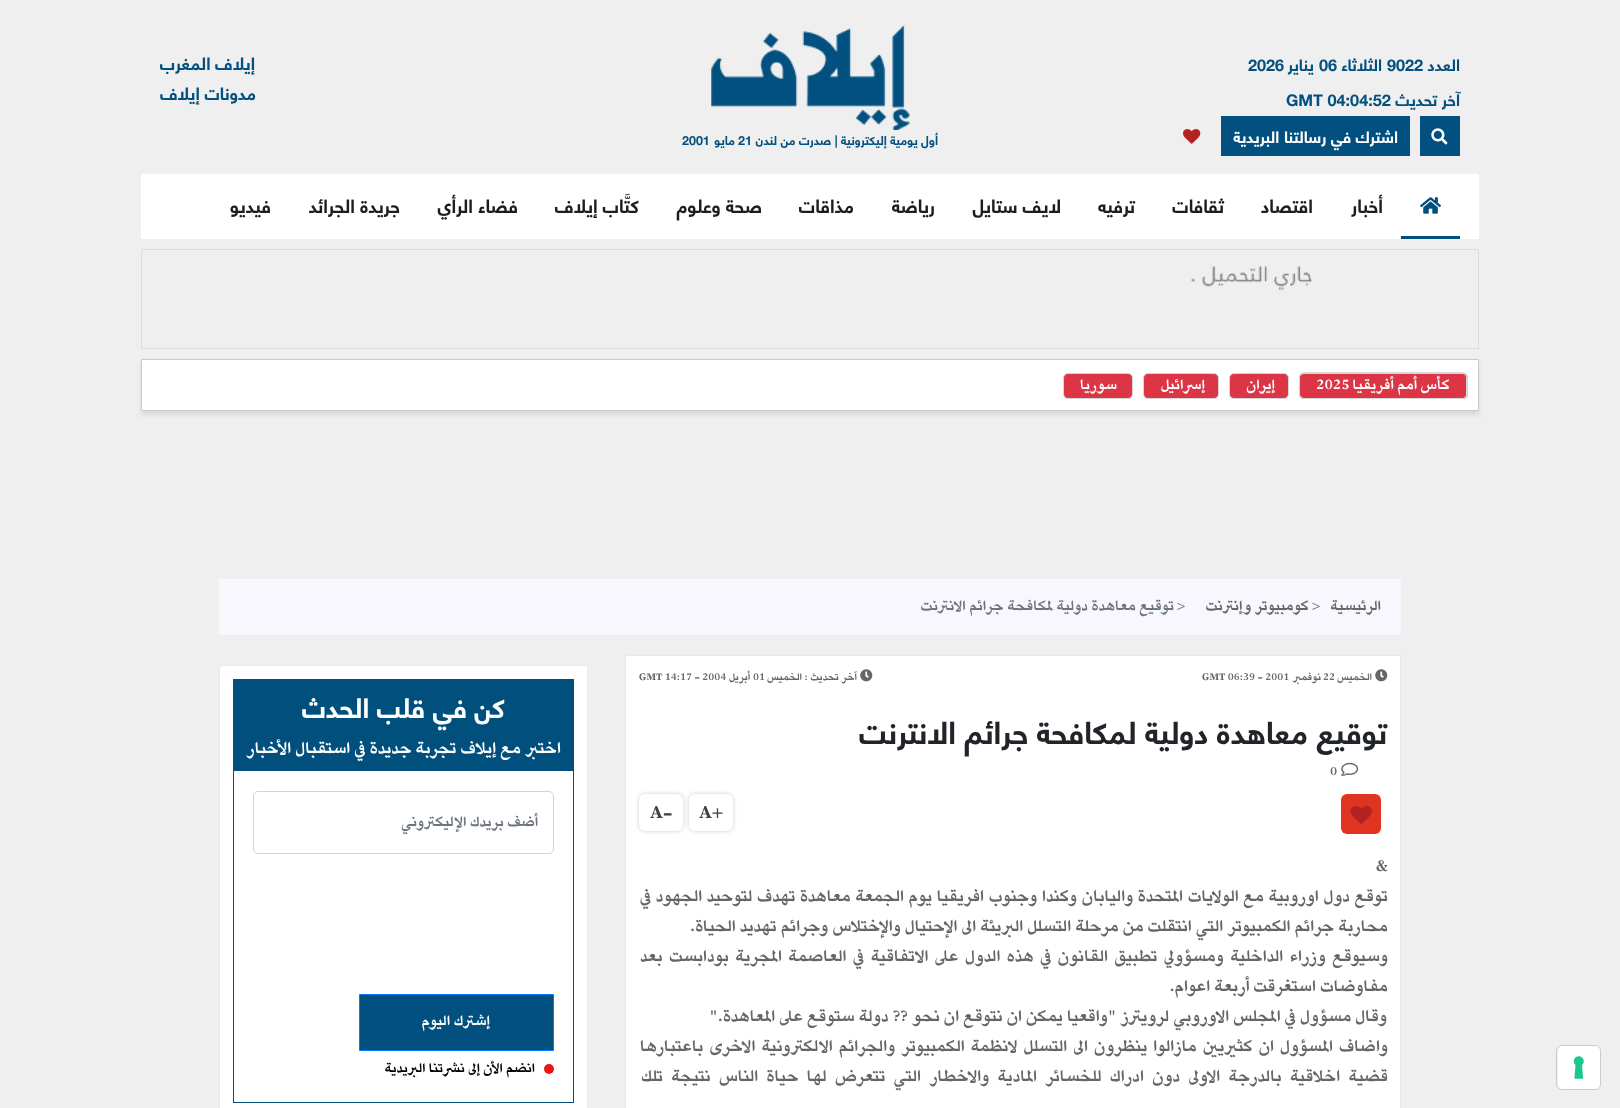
<!DOCTYPE html>
<meta charset="utf-8">
<style>body { margin: 0 } canvas { display: block }</style>
<canvas id="canvas" width="1620" height="1108"></canvas>
<script type="module">
  const canvas = document.getElementById("canvas");
  const g = canvas.getContext("2d");
  g.miterLimit = 4;
  g.fontKerning = "normal";
  function drawText(s, x, y, [font, color]) {
    g.font = font;
    g.fillStyle = color;
    g.fillText(s, x, y);
  }
  function fillBox(x, y, w, h, color) {
    g.fillStyle = color;
    g.fillRect(x, y, w, h);
  }
  function fillRounded(x, y, w, h, r, color) {
    g.fillStyle = color;
    g.beginPath();
    g.roundRect(x, y, w, h, r);
    g.fill();
  }
  async function drawPicture(src, x, y, w, h) {
    const img = new Image();
    img.src = src;
    await img.decode();
    g.drawImage(img, x, y, w, h);
  }

  const s1 = ["bold 16.25px 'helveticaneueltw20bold'", "#01507F"];
  const s2 = ["bold 16.25px 'helveticaneueltw20bold'", "#FFFFFF"];
  const s3 = ["bold 12.5px 'helveticaneueltw20bold'", "#01507F"];
  const s4 = ["bold 17.5px 'helveticaneueltw20bold'", "#01507F"];
  const s5 = ["bold 18.75px 'helveticaneueltw20bold'", "#1C1C21"];
  const s6 = ["bold 17.5px 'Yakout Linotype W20'", "#FFFFFF"];
  const s7 = ["bold 17.5px 'Yakout Linotype W20'", "#666666"];
  const s8 = ["bold 16.25px 'Yakout Linotype W20'", "#6C757D"];
  const s9 = ["bold 17.5px 'Yakout Linotype W20'", "#6C757D"];
  const s10 = ["bold 12.5px 'Yakout Linotype W20'", "#666666"];
  const s11 = ["bold 31.25px 'helveticaneueltw20bold'", "#212428"];
  const s12 = ["bold 15px 'Yakout Linotype W20'", "#666666"];
  const s13 = ["bold 22px 'Yakout Linotype W20'", "#414141"];
  const s14 = ["bold 20px 'Yakout Linotype W20'", "#666666"];
  const s15 = ["bold 27.5px 'helveticaneueltw20bold'", "#FFFFFF"];
  const s16 = ["bold 20px 'Yakout Linotype W20'", "#FFFFFF"];
  const s17 = ["bold 16.25px 'Yakout Linotype W20'", "#000000"];

  fillBox(0, 0, 1620, 1108, "#EFEFEF");
  g.direction = "rtl";
  drawText("العدد", 1460, 71, s1);
  g.direction = "ltr";
  drawText("9022", 1387, 71, s1);
  g.direction = "rtl";
  drawText("الثلاثاء", 1382, 71, s1);
  g.direction = "ltr";
  drawText("06", 1319, 71, s1);
  g.direction = "rtl";
  drawText("يناير", 1314, 71, s1);
  g.direction = "ltr";
  drawText("2026", 1248, 71, s1);
  g.direction = "rtl";
  drawText("آخر تحديث", 1460, 106, s1);
  g.direction = "ltr";
  drawText("GMT 04:04:52", 1286, 106, s1);
  fillBox(1420, 116, 40, 40, "#01507F");
  await drawPicture("pic1.png", 1431, 128, 17, 17);
  fillBox(1221, 116, 189, 40, "#01507F");
  g.direction = "rtl";
  drawText("اشترك في رسالتنا البريدية", 1398, 143, s2);
  await drawPicture("pic2.png", 1183, 129, 18, 15);
  await drawPicture("pic3.png", 711, 25, 199, 105);
  drawText("أول يومية إليكترونية | صدرت من لندن", 938, 145, s3);
  g.direction = "ltr";
  drawText("21", 738, 145, s3);
  g.direction = "rtl";
  drawText("مايو", 735, 145, s3);
  g.direction = "ltr";
  drawText("2001", 682, 145, s3);
  g.direction = "rtl";
  drawText("إيلاف المغرب", 255, 70, s4);
  drawText("مدونات إيلاف", 256, 100, s4);
  fillBox(141, 174, 1338, 65, "#FFFFFF");
  fillBox(1401, 236, 59, 3, "#014F7D");
  await drawPicture("pic4.png", 1420, 197, 21, 17);
  drawText("أخبار", 1383, 213, s5);
  drawText("اقتصاد", 1313, 213, s5);
  drawText("ثقافات", 1224, 213, s5);
  drawText("ترفيه", 1135, 213, s5);
  drawText("لايف ستايل", 1061, 213, s5);
  drawText("رياضة", 935, 213, s5);
  drawText("مذاقات", 854, 213, s5);
  drawText("صحة وعلوم", 762, 213, s5);
  drawText("كتَّاب إيلاف", 639, 213, s5);
  drawText("فضاء الرأي", 518, 213, s5);
  drawText("جريدة الجرائد", 400, 213, s5);
  drawText("فيديو", 271, 213, s5);
  g.strokeStyle = "#DDDDDD";
  g.strokeRect(141.5, 249.5, 1337, 99);
  await drawPicture("pic5.png", 1191, 266, 122, 25);
  g.fillStyle = "#D9D9D9";
  g.filter = "blur(2px)";
  g.beginPath();
  g.rect(141, 363, 1338, 52);
  g.fill();
  g.filter = "none";
  g.fillStyle = "#FFFFFF";
  g.beginPath();
  g.rect(141.5, 359.5, 1337, 51);
  g.fill();
  g.strokeStyle = "#C9C9C9";
  g.stroke();
  g.fillStyle = "#DC3545";
  g.beginPath();
  g.roundRect(1349, 373, 119, 26, [0, 5, 5, 0]);
  g.fill();
  g.fillStyle = "#D7D7D7";
  g.beginPath();
  g.moveTo(1349, 372);
  g.lineTo(1462, 372);
  g.bezierCurveTo(1465, 372, 1468, 375, 1468, 378);
  g.lineTo(1468, 394);
  g.bezierCurveTo(1468, 397, 1465, 399, 1462, 399);
  g.lineTo(1349, 399);
  g.closePath();
  g.moveTo(1349, 374);
  g.lineTo(1462, 374);
  g.bezierCurveTo(1465, 374, 1466, 375, 1466, 378);
  g.lineTo(1466, 394);
  g.bezierCurveTo(1466, 396, 1465, 398, 1462, 398);
  g.lineTo(1349, 398);
  g.closePath();
  g.fill("evenodd");
  drawText("كأس أمم أفريقيا", 1450, 389, s6);
  g.fillStyle = "#DC3545";
  g.beginPath();
  g.roundRect(1299, 373, 50, 26, [5, 0, 0, 5]);
  g.fill();
  g.fillStyle = "#D7D7D7";
  g.beginPath();
  g.moveTo(1304, 372);
  g.lineTo(1349, 372);
  g.lineTo(1349, 399);
  g.lineTo(1304, 399);
  g.bezierCurveTo(1301, 399, 1299, 397, 1299, 394);
  g.lineTo(1299, 378);
  g.bezierCurveTo(1299, 375, 1301, 372, 1304, 372);
  g.closePath();
  g.moveTo(1304, 374);
  g.lineTo(1349, 374);
  g.lineTo(1349, 398);
  g.lineTo(1304, 398);
  g.bezierCurveTo(1302, 398, 1300, 396, 1300, 394);
  g.lineTo(1300, 378);
  g.bezierCurveTo(1300, 375, 1302, 374, 1304, 374);
  g.closePath();
  g.fill("evenodd");
  g.direction = "ltr";
  drawText("2025", 1316, 389, s6);
  g.fillStyle = "#DC3545";
  g.beginPath();
  g.roundRect(1229.5, 373.5, 59, 25, 4.5);
  g.fill();
  g.strokeStyle = "#D7D7D7";
  g.stroke();
  g.direction = "rtl";
  drawText("إيران", 1275, 389, s6);
  g.fillStyle = "#DC3545";
  g.beginPath();
  g.roundRect(1143.5, 373.5, 75, 25, 4.5);
  g.fill();
  g.stroke();
  drawText("إسرائيل", 1205, 389, s6);
  g.fillStyle = "#DC3545";
  g.beginPath();
  g.roundRect(1063.5, 373.5, 69, 25, 4.5);
  g.fill();
  g.stroke();
  drawText("سوريا", 1117, 389, s6);
  g.beginPath();
  g.roundRect(1556.5, 1045.5, 44, 44, 5.5);
  g.strokeStyle = "#CBCBCB";
  g.stroke();
  fillRounded(1558, 1046, 42, 43, 5, "#FFFFFF");
  await drawPicture("pic6.png", 1573, 1056, 11, 23);
  fillBox(219, 579, 1182, 56, "#F7F7FD");
  drawText("الرئيسية", 1381, 610, s7);
  g.direction = "ltr";
  drawText(">", 1312, 610, s8);
  g.direction = "rtl";
  drawText("كومبيوتر وإنترنت", 1309, 610, s7);
  g.direction = "ltr";
  drawText(">", 1177, 610, s8);
  g.direction = "rtl";
  drawText("توقيع معاهدة دولية لمكافحة جرائم الانترنت", 1174, 610, s9);
  g.fillStyle = "#FFFFFF";
  g.beginPath();
  g.rect(625.5, 655.5, 775, 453);
  g.fill();
  g.strokeStyle = "#E9E9E9";
  g.stroke();
  await drawPicture("pic7.png", 1375, 669, 13, 13);
  drawText("الخميس", 1372, 680, s10);
  g.direction = "ltr";
  drawText("22", 1323, 680, s10);
  g.direction = "rtl";
  drawText("نوفمبر", 1321, 680, s10);
  g.direction = "ltr";
  drawText("GMT 06:39 - 2001", 1202, 680, s10);
  await drawPicture("pic7.png", 860, 669, 13, 13);
  g.direction = "rtl";
  drawText("آخر تحديث :", 857, 680, s10);
  drawText("الخميس", 802, 680, s10);
  g.direction = "ltr";
  drawText("01", 753, 680, s10);
  g.direction = "rtl";
  drawText("أبريل", 750, 680, s10);
  g.direction = "ltr";
  drawText("GMT 14:17 - 2004", 639, 680, s10);
  g.direction = "rtl";
  drawText("توقيع معاهدة دولية لمكافحة جرائم الانترنت", 1387, 744, s11);
  await drawPicture("pic8.png", 1341, 762, 18, 14);
  g.direction = "ltr";
  drawText("0", 1330, 775, s12);
  fillRounded(1341, 794, 40, 40, 6, "#DF3520");
  await drawPicture("pic9.png", 1350, 806, 22, 18);
  g.fillStyle = "#CCCCCC";
  g.filter = "blur(2px)";
  g.beginPath();
  g.roundRect(689, 794, 44, 37, 6);
  g.fill();
  g.filter = "none";
  fillRounded(689, 794, 44, 37, 6, "#FFFFFF");
  drawText("A+", 699, 818, s13);
  g.fillStyle = "#CCCCCC";
  g.filter = "blur(2px)";
  g.beginPath();
  g.roundRect(639, 794, 44, 37, 6);
  g.fill();
  g.filter = "none";
  fillRounded(639, 794, 44, 37, 6, "#FFFFFF");
  drawText("A-", 650, 818, s13);
  drawText("&", 1376, 871, s14);
  g.wordSpacing = "0.6px";
  g.direction = "rtl";
  drawText("توقع دول اوروبية مع الولايات المتحدة واليابان وكندا وجنوب افريقيا يوم الجمعة معاهدة تهدف لتوحيد الجهود في", 1388, 901, s14);
  g.wordSpacing = "0px";
  drawText("محاربة جرائم الكمبيوتر التي انتقلت من مرحلة التسلل البريئة الى الإحتيال والإختلاس وجرائم تهديد الحياة.", 1388, 931, s14);
  g.wordSpacing = "2.4px";
  drawText("وسيوقع وزراء الداخلية ومسؤولي تطبيق القانون في هذه الدول على الاتفاقية في العاصمة المجرية بودابست بعد", 1388, 961, s14);
  g.wordSpacing = "0px";
  drawText("مفاوضات استغرقت أربعة اعوام.", 1388, 991, s14);
  drawText("وقال مسؤول في المجلس الاوروبي لرويترز \"واقعيا يمكن ان نتوقع ان نحو ?? دولة ستوقع على المعاهدة.\"", 1387, 1021, s14);
  g.wordSpacing = "2px";
  drawText("واضاف المسؤول ان كثيريين مازالوا ينظرون الى التسلل لانظمة الكمبيوتر والجرائم الالكترونية الاخرى باعتبارها", 1388, 1051, s14);
  g.wordSpacing = "4.25px";
  drawText("قضية اخلاقية بالدرجة الاولى دون ادراك للخسائر المادية والاخطار التي تتعرض لها حياة الناس نتيجة تلك", 1388, 1081, s14);
  g.fillStyle = "#FFFFFF";
  g.beginPath();
  g.rect(219.5, 665.5, 368, 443);
  g.fill();
  g.stroke();
  g.strokeStyle = "#014F7D";
  g.strokeRect(233.5, 679.5, 340, 423);
  fillBox(234, 680, 339, 91, "#014F7D");
  g.wordSpacing = "0px";
  drawText("كن في قلب الحدث", 505, 718, s15);
  drawText("اختبر مع إيلاف تجربة جديدة في استقبال الأخبار", 561, 753, s16);
  g.beginPath();
  g.roundRect(253.5, 791.5, 300, 62, 4.5);
  g.strokeStyle = "#CED4DA";
  g.stroke();
  drawText("أضف بريدك الإليكتروني", 538, 826, s9);
  g.fillStyle = "#01507F";
  g.beginPath();
  g.rect(359.5, 994.5, 194, 56);
  g.fill();
  g.strokeStyle = "#007BFF";
  g.stroke();
  drawText("إشترك اليوم", 490, 1025, s6);
  g.fillStyle = "#EB1515";
  g.beginPath();
  g.arc(549, 1069, 5, 0, Math.PI * 2);
  g.fill();
  drawText("انضم الأن إلى نشرتنا البريدية", 535, 1072, s17);
</script>
